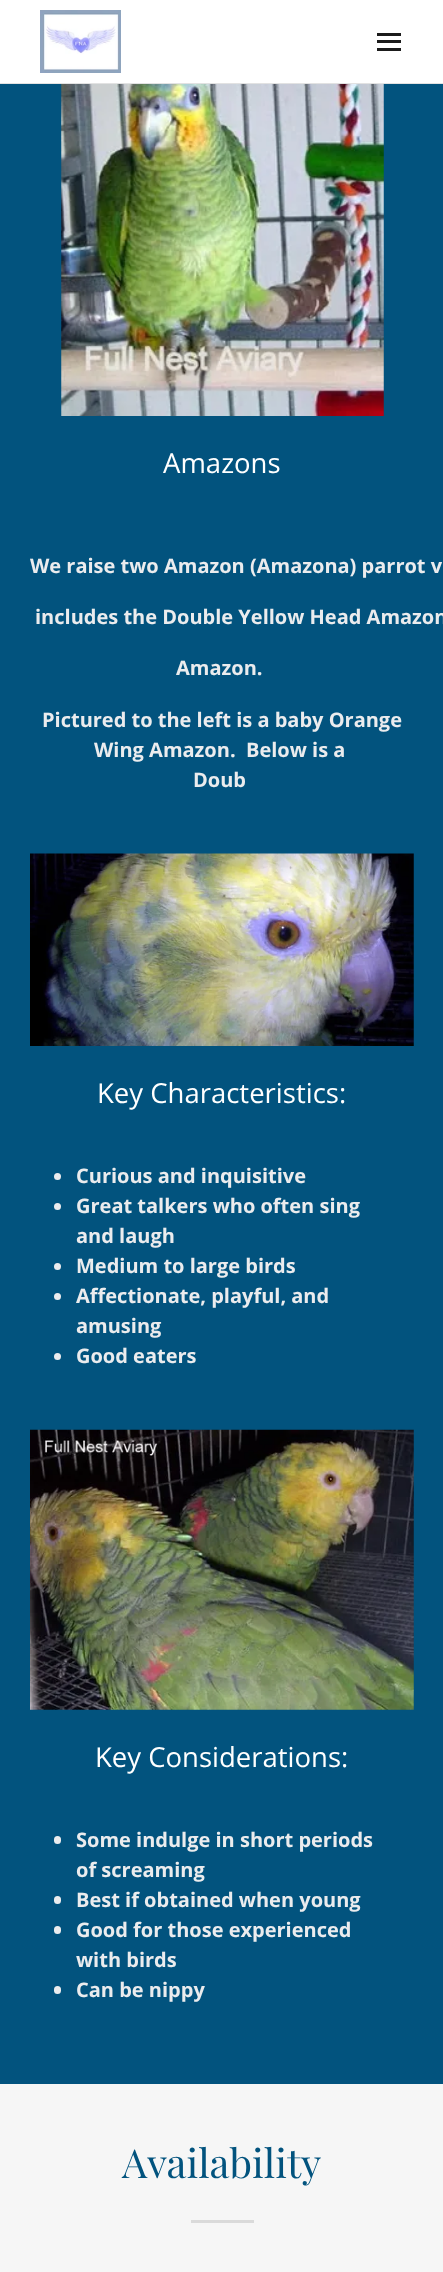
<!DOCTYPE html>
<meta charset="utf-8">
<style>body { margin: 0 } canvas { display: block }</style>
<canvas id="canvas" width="443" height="2272"></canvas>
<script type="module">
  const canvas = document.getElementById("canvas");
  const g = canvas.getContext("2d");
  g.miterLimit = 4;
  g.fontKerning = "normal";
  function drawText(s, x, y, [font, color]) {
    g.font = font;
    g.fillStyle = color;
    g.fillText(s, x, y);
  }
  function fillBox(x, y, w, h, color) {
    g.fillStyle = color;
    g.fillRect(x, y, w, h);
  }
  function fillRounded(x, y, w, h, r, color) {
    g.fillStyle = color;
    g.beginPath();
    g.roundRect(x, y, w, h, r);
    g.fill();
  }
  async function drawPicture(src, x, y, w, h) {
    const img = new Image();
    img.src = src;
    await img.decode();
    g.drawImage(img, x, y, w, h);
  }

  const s1 = ["27.5px Open Sans", "#FFFFFF"];
  const s2 = ["bold 20px Open Sans", "#EBECEE"];
  const s3 = ["40px Playfair Display", "#02537E"];

  fillBox(0, 0, 443, 2272, "#02537E");
  fillBox(0, 0, 443, 83, "#FFFFFF");
  await drawPicture("pic1.png", 40, 10, 81, 63);
  fillBox(377, 33, 24, 3, "#1B1B1B");
  fillBox(377, 40, 24, 3, "#1B1B1B");
  fillBox(377, 48, 24, 3, "#1B1B1B");
  fillBox(0, 83, 443, 1, "#E2E2E2");
  await drawPicture("pic2.png", 61, 84, 323, 332);
  drawText("Amazons", 163, 473, s1);
  drawText("We raise two Amazon (Amazona) parrot v", 30, 573, s2);
  drawText("includes the Double Yellow Head Amazon", 35, 624, s2);
  drawText("Amazon.", 176, 675, s2);
  drawText("Pictured to the left is a baby Orange", 42, 727, s2);
  drawText("Wing Amazon.  Below is a", 94, 757, s2);
  drawText("Doub", 193, 787, s2);
  await drawPicture("pic3.png", 30, 853, 384, 193);
  drawText("Key Characteristics:", 97, 1103, s1);
  g.fillStyle = "#EBECEE";
  g.beginPath();
  g.arc(57.5, 1176.5, 3.5, 0, Math.PI * 2);
  g.fill();
  drawText("Curious and inquisitive", 76, 1183, s2);
  g.beginPath();
  g.arc(57.5, 1206.5, 3.5, 0, Math.PI * 2);
  g.fill();
  drawText("Great talkers who often sing", 76, 1213, s2);
  drawText("and laugh", 76, 1243, s2);
  g.beginPath();
  g.arc(57.5, 1266.5, 3.5, 0, Math.PI * 2);
  g.fill();
  drawText("Medium to large birds", 76, 1273, s2);
  g.beginPath();
  g.arc(57.5, 1296.5, 3.5, 0, Math.PI * 2);
  g.fill();
  drawText("Affectionate, playful, and", 76, 1303, s2);
  drawText("amusing", 76, 1333, s2);
  g.beginPath();
  g.arc(57.5, 1356.5, 3.5, 0, Math.PI * 2);
  g.fill();
  drawText("Good eaters", 76, 1363, s2);
  await drawPicture("pic4.png", 30, 1429, 384, 281);
  drawText("Key Considerations:", 95, 1767, s1);
  fillRounded(54, 1836, 7, 8, 3.5, "#EBECEE");
  drawText("Some indulge in short periods", 76, 1847, s2);
  drawText("of screaming", 76, 1877, s2);
  fillRounded(54, 1896, 7, 8, 3.5, "#EBECEE");
  drawText("Best if obtained when young", 76, 1907, s2);
  fillRounded(54, 1926, 7, 8, 3.5, "#EBECEE");
  drawText("Good for those experienced", 76, 1937, s2);
  drawText("with birds", 76, 1967, s2);
  fillRounded(54, 1986, 7, 8, 3.5, "#EBECEE");
  drawText("Can be nippy", 76, 1997, s2);
  fillBox(0, 2084, 443, 188, "#F6F6F6");
  drawText("Availability", 122, 2178, s3);
  fillBox(191, 2220, 63, 3, "#DADADA");
</script>
